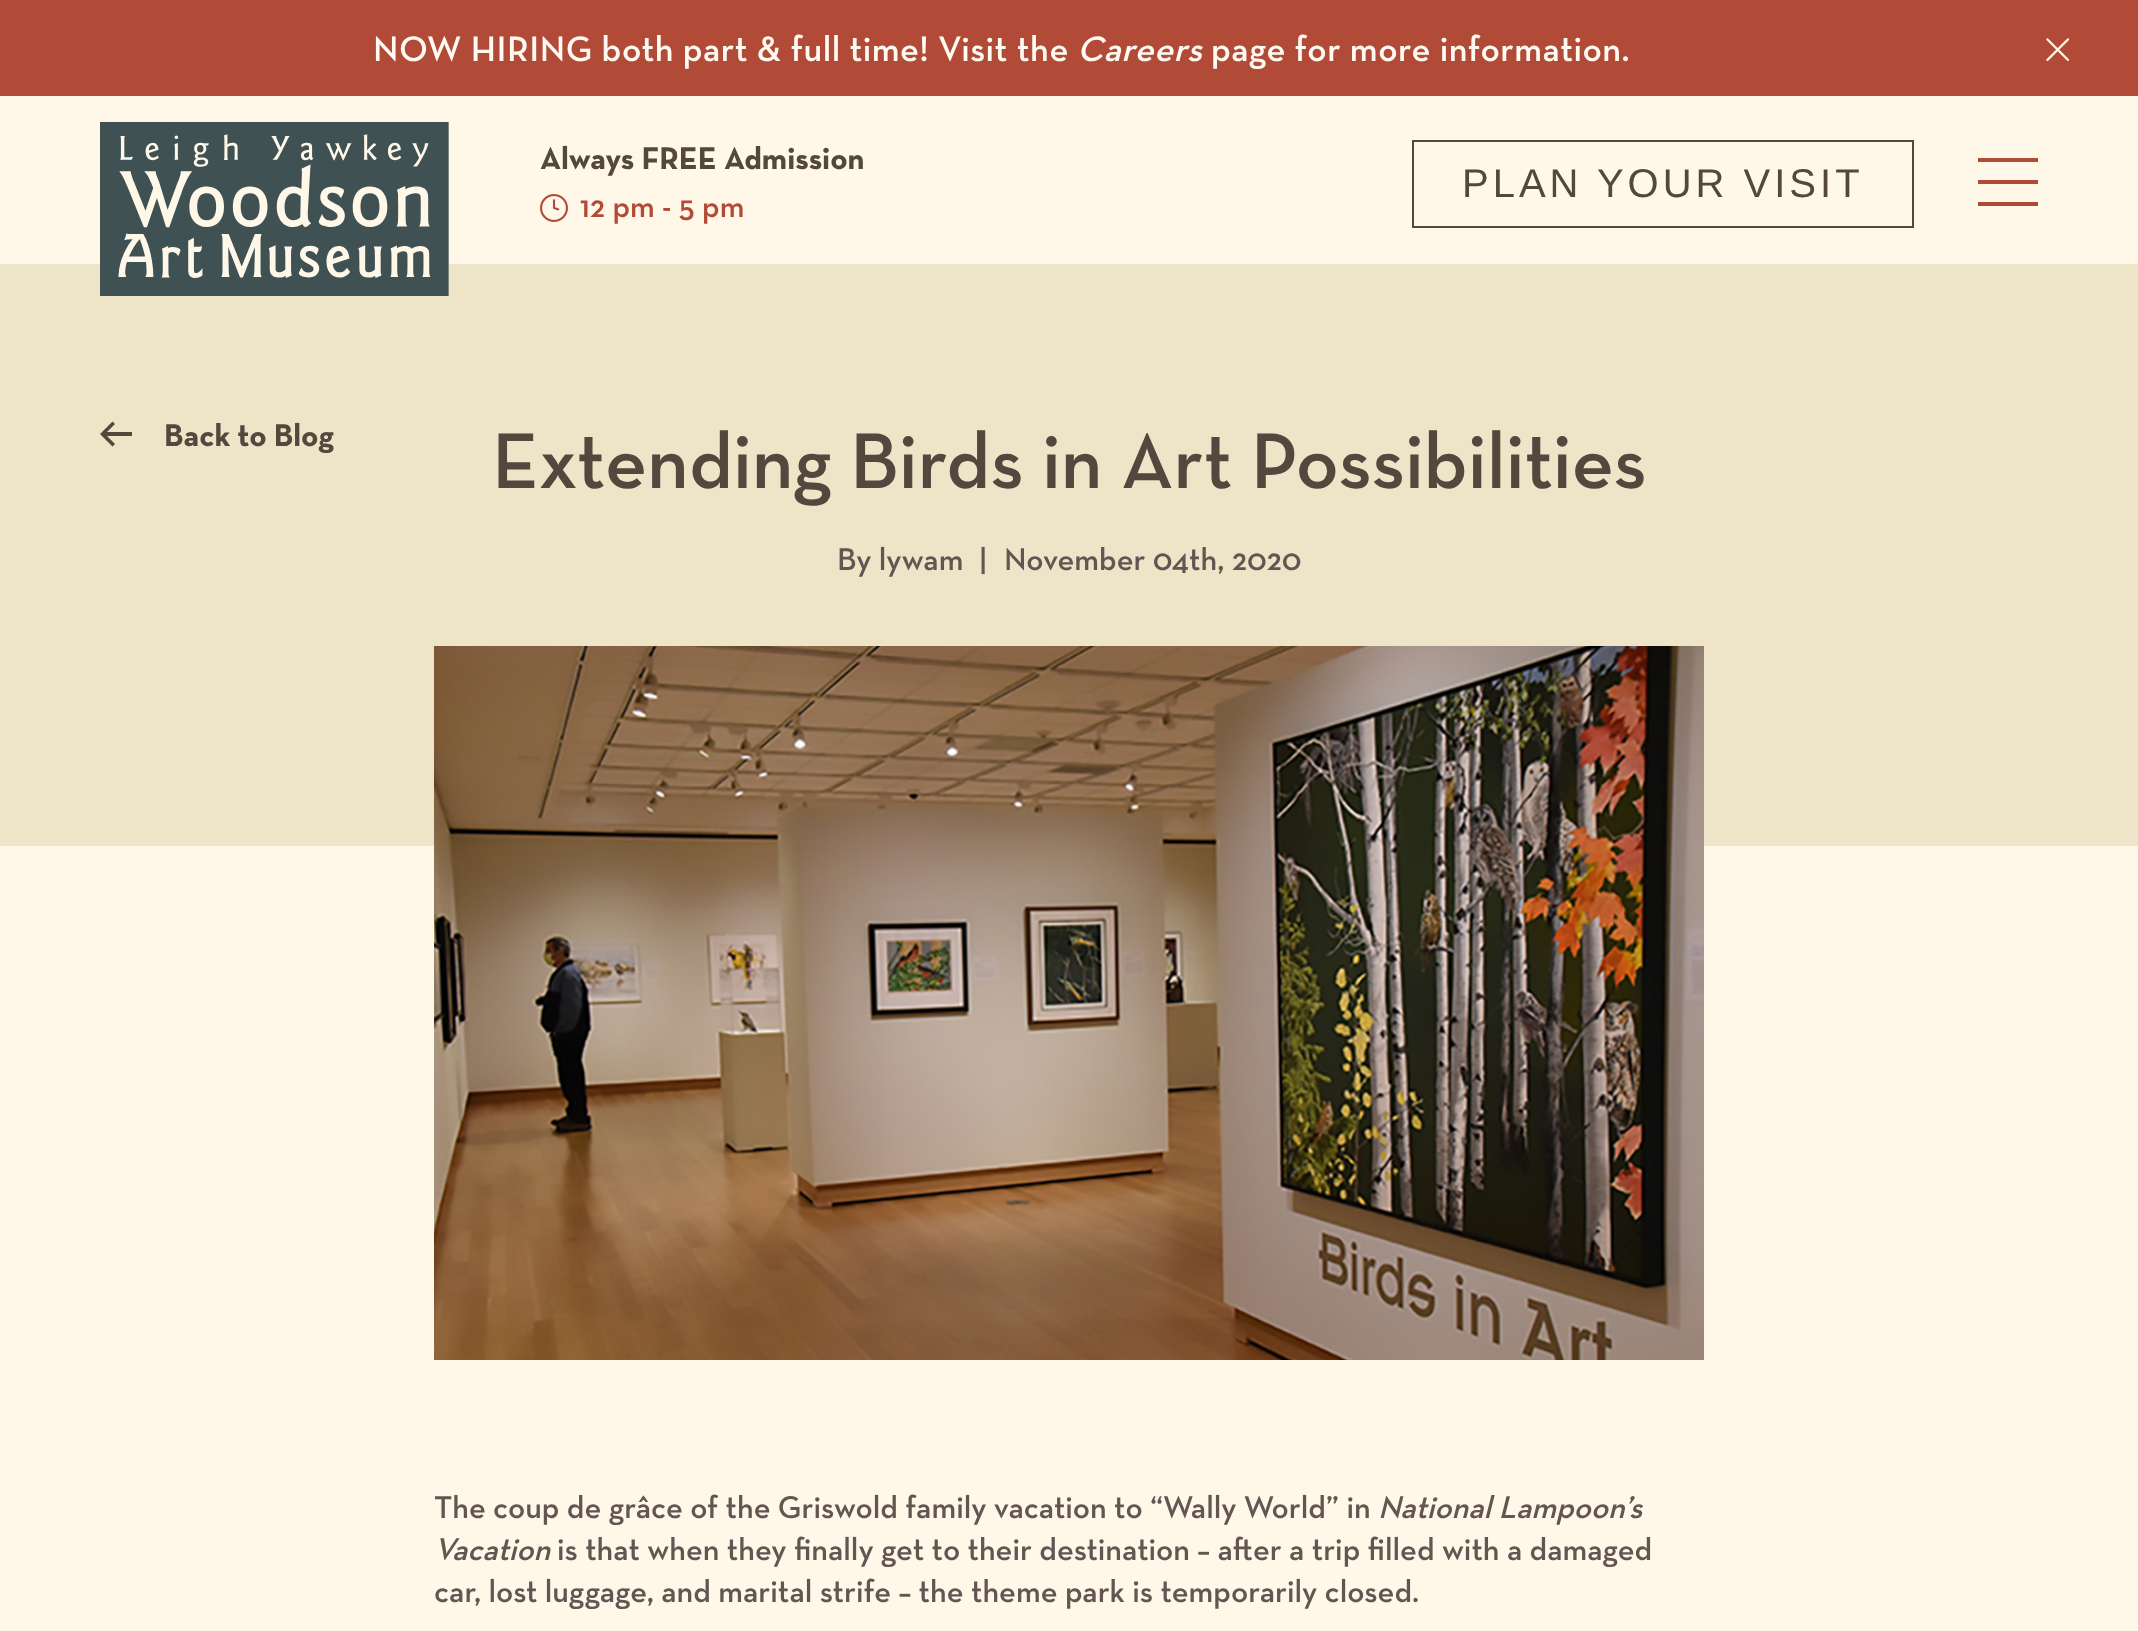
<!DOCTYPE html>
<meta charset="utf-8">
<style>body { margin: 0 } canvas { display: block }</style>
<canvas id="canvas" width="2138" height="1631"></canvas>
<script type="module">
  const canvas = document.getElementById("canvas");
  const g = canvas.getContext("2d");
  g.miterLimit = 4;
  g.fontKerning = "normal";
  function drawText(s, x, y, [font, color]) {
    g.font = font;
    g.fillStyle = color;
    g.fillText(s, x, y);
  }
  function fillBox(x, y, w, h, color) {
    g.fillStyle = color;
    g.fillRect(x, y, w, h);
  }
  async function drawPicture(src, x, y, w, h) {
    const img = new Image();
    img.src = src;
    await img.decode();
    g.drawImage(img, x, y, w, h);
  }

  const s1 = ["600 36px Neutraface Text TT", "#FFFBF2"];
  const s2 = ["italic 600 36px Neutraface Text TT", "#FFFBF2"];
  const s3 = ["bold 32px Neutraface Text", "#55473E"];
  const s4 = ["600 32px Neutraface Text TT", "#B24A38"];
  const s5 = ["40px Liberation Sans", "#55473E"];
  const s6 = ["600 80px Neutraface Text TT", "#55473E"];
  const s7 = ["600 32px Neutraface Text TT", "#645553"];
  const s8 = ["italic 600 32px Neutraface Text TT", "#645553"];

  fillBox(0, 0, 2138, 1631, "#FFF8E9");
  fillBox(0, 0, 2138, 96, "#B24A38");
  g.letterSpacing = "0.5px";
  drawText("NOW HIRING both part & full time! Visit the", 373, 61, s1);
  drawText("Careers", 1077, 61, s2);
  drawText("page for more information.", 1211, 61, s1);
  await drawPicture("pic1.png", 2046, 38, 24, 24);
  fillBox(0, 264, 2138, 582, "#EEE5C9");
  await drawPicture("pic2.png", 100, 122, 349, 174);
  g.letterSpacing = "0px";
  drawText("Always FREE Admission", 540, 169, s3);
  await drawPicture("pic3.png", 540, 194, 28, 28);
  drawText("12 pm - 5 pm", 580, 217, s4);
  g.strokeStyle = "#55473E";
  g.lineWidth = 2;
  g.strokeRect(1413, 141, 500, 86);
  g.letterSpacing = "4px";
  drawText("PLAN YOUR VISIT", 1462, 197, s5);
  fillBox(1978, 158, 60, 4, "#B24A38");
  fillBox(1978, 180, 60, 4, "#B24A38");
  fillBox(1978, 202, 60, 4, "#B24A38");
  g.fillStyle = "#55473E";
  g.beginPath();
  g.moveTo(132, 432);
  g.lineTo(107, 432);
  g.lineTo(115, 424);
  g.lineTo(112.5, 421.5);
  g.lineTo(100, 434);
  g.lineTo(112.5, 446.5);
  g.lineTo(115, 444);
  g.lineTo(107, 436);
  g.lineTo(132, 436);
  g.closePath();
  g.fill();
  g.letterSpacing = "0px";
  drawText("Back to Blog", 164, 446, s3);
  drawText("Extending Birds in Art Possibilities", 492, 488, s6);
  drawText("By lywam", 837, 570, s7);
  drawText("|", 979, 570, s7);
  drawText("November 04th, 2020", 1004, 570, s7);
  await drawPicture("pic4.png", 434, 646, 1270, 714);
  drawText("The coup de grâce of the Griswold family vacation to “Wally World” in", 434, 1518, s7);
  drawText("National Lampoon’s", 1378, 1518, s8);
  drawText("Vacation", 434, 1560, s8);
  drawText("is that when they finally get to their destination – after a trip filled with a damaged", 557, 1560, s7);
  drawText("car, lost luggage, and marital strife – the theme park is temporarily closed.", 434, 1602, s7);
</script>
